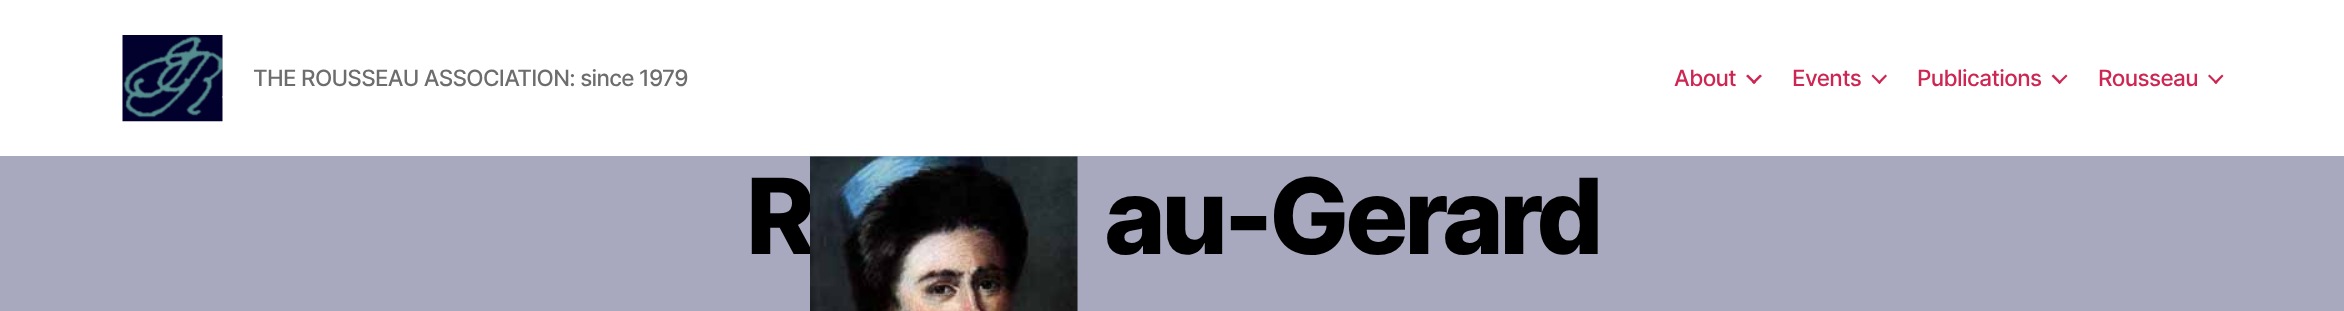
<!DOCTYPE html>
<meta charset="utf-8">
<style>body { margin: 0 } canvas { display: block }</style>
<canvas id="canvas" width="2344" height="311"></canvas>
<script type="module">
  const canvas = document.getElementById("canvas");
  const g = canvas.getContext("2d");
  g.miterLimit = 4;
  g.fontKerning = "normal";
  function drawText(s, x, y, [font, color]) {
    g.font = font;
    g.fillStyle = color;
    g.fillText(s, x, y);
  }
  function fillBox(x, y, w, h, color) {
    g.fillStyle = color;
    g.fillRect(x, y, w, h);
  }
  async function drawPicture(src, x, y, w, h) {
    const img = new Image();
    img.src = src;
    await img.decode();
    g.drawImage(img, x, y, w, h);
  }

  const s1 = ["500 22.5px Inter", "#6D6D6D"];
  const s2 = ["500 22.5px Inter", "#CD2653"];
  const s3 = ["800 105px Inter", "#000000"];

  fillBox(0, 0, 2344, 311, "#A8A8BF");
  fillBox(0, 0, 2344, 156, "#FFFFFF");
  await drawPicture("pic1.png", 122, 35, 101, 87);
  g.letterSpacing = "-0.7px";
  drawText("THE ROUSSEAU ASSOCIATION: since 1979", 253, 86, s1);
  g.letterSpacing = "-0.6px";
  drawText("About", 1674, 86, s2);
  g.beginPath();
  g.moveTo(1746, 76);
  g.lineTo(1748, 74.5);
  g.lineTo(1756, 82.5);
  g.lineTo(1754, 84);
  g.closePath();
  g.fill();
  g.beginPath();
  g.moveTo(1752, 82.5);
  g.lineTo(1760, 74.5);
  g.lineTo(1762, 76);
  g.lineTo(1754, 84);
  g.closePath();
  g.fill();
  drawText("Events", 1792, 86, s2);
  g.beginPath();
  g.moveTo(1871.5, 76);
  g.lineTo(1873, 74.5);
  g.lineTo(1881, 82.5);
  g.lineTo(1879.5, 84);
  g.closePath();
  g.fill();
  g.beginPath();
  g.moveTo(1877.5, 82.5);
  g.lineTo(1885.5, 74.5);
  g.lineTo(1887, 76);
  g.lineTo(1879.5, 84);
  g.closePath();
  g.fill();
  drawText("Publications", 1917, 86, s2);
  g.beginPath();
  g.moveTo(2051.5, 76);
  g.lineTo(2053.5, 74.5);
  g.lineTo(2061.5, 82.5);
  g.lineTo(2059.5, 84);
  g.closePath();
  g.fill();
  g.beginPath();
  g.moveTo(2058, 82.5);
  g.lineTo(2066, 74.5);
  g.lineTo(2067.5, 76);
  g.lineTo(2059.5, 84);
  g.closePath();
  g.fill();
  drawText("Rousseau", 2098, 86, s2);
  g.beginPath();
  g.moveTo(2208, 76);
  g.lineTo(2209.5, 74.5);
  g.lineTo(2217.5, 82.5);
  g.lineTo(2216, 84);
  g.closePath();
  g.fill();
  g.beginPath();
  g.moveTo(2214, 82.5);
  g.lineTo(2222, 74.5);
  g.lineTo(2223.5, 76);
  g.lineTo(2216, 84);
  g.closePath();
  g.fill();
  g.letterSpacing = "-4.25px";
  drawText("R", 746, 254, s3);
  await drawPicture("pic2.png", 810, 156, 268, 155);
  drawText("au-Gerard", 1104, 254, s3);
</script>
